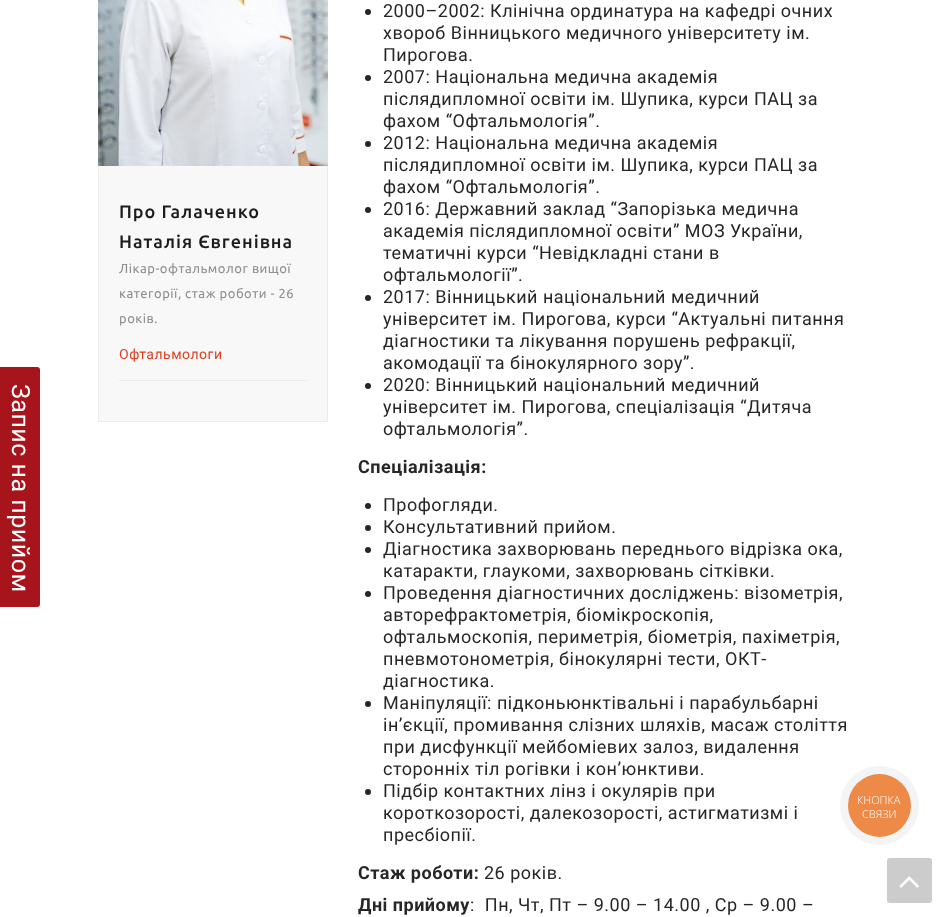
<!DOCTYPE html>
<meta charset="utf-8">
<style>body { margin: 0 } canvas { display: block }</style>
<canvas id="canvas" width="946" height="917"></canvas>
<script type="module">
  const canvas = document.getElementById("canvas");
  const g = canvas.getContext("2d");
  g.miterLimit = 4;
  g.fontKerning = "normal";
  function drawText(s, x, y, [font, color]) {
    g.font = font;
    g.fillStyle = color;
    g.fillText(s, x, y);
  }
  function fillBox(x, y, w, h, color) {
    g.fillStyle = color;
    g.fillRect(x, y, w, h);
  }
  function fillRounded(x, y, w, h, r, color) {
    g.fillStyle = color;
    g.beginPath();
    g.roundRect(x, y, w, h, r);
    g.fill();
  }
  async function drawPicture(src, x, y, w, h) {
    const img = new Image();
    img.src = src;
    await img.decode();
    g.drawImage(img, x, y, w, h);
  }

  const s1 = ["500 18px Ubuntu", "#1C1C1C"];
  const s2 = ["13px Ubuntu", "#909090"];
  const s3 = ["14px Roboto", "#E13E20"];
  const s4 = ["18px Roboto", "#262626"];
  const s5 = ["bold 18px Roboto", "#262626"];
  const s6 = ["300 11px Open Sans", "#FFFFFF"];

  fillBox(0, 0, 946, 917, "#FFFFFF");
  g.fillStyle = "#A8141B";
  g.beginPath();
  g.roundRect(0, 367, 40, 240, [0, 3, 3, 0]);
  g.fill();
  g.letterSpacing = "0.5px";
  g.font = "25px Roboto";
  g.fillStyle = "#FFFFFF";
  g.save();
  g.translate(12, 384);
  g.rotate(90 * Math.PI / 180);
  g.fillText("Запис на прийом", 0, 0);
  g.restore();
  await drawPicture("pic1.png", 98, 0, 230, 166);
  fillBox(99, 166, 228, 255, "#F8F8F8");
  fillBox(327, 166, 1, 256, "#EBEBEB");
  fillBox(98, 421, 230, 1, "#EBEBEB");
  fillBox(98, 166, 1, 256, "#EBEBEB");
  g.letterSpacing = "1px";
  drawText("Про Галаченко", 119, 218, s1);
  drawText("Наталія Євгенівна", 119, 248, s1);
  g.letterSpacing = "0.5px";
  drawText("Лікар-офтальмолог вищої", 119, 273, s2);
  drawText("категорії, стаж роботи - 26", 119, 298, s2);
  drawText("років.", 119, 323, s2);
  fillBox(119, 380, 188, 1, "#EBEBEB");
  drawText("Офтальмологи", 119, 359, s3);
  g.fillStyle = "#262626";
  g.beginPath();
  g.arc(368, 12, 3, 0, Math.PI * 2);
  g.fill();
  drawText("2000–2002: Клінічна ординатура на кафедрі очних", 383, 17, s4);
  drawText("хвороб Вінницького медичного університету ім.", 383, 39, s4);
  drawText("Пирогова.", 383, 61, s4);
  g.beginPath();
  g.arc(368, 78, 3, 0, Math.PI * 2);
  g.fill();
  drawText("2007: Національна медична академія", 383, 83, s4);
  drawText("післядипломної освіти ім. Шупика, курси ПАЦ за", 383, 105, s4);
  drawText("фахом “Офтальмологія”.", 383, 127, s4);
  g.beginPath();
  g.arc(368, 144, 3, 0, Math.PI * 2);
  g.fill();
  drawText("2012: Національна медична академія", 383, 149, s4);
  drawText("післядипломної освіти ім. Шупика, курси ПАЦ за", 383, 171, s4);
  drawText("фахом “Офтальмологія”.", 383, 193, s4);
  g.beginPath();
  g.arc(368, 210, 3, 0, Math.PI * 2);
  g.fill();
  drawText("2016: Державний заклад “Запорізька медична", 383, 215, s4);
  drawText("академія післядипломної освіти” МОЗ України,", 383, 237, s4);
  drawText("тематичні курси “Невідкладні стани в", 383, 259, s4);
  drawText("офтальмології”.", 383, 281, s4);
  g.beginPath();
  g.arc(368, 298, 3, 0, Math.PI * 2);
  g.fill();
  drawText("2017: Вінницький національний медичний", 383, 303, s4);
  drawText("університет ім. Пирогова, курси “Актуальні питання", 383, 325, s4);
  drawText("діагностики та лікування порушень рефракції,", 383, 347, s4);
  drawText("акомодації та бінокулярного зору”.", 383, 369, s4);
  g.beginPath();
  g.arc(368, 386, 3, 0, Math.PI * 2);
  g.fill();
  drawText("2020: Вінницький національний медичний", 383, 391, s4);
  drawText("університет ім. Пирогова, спеціалізація “Дитяча", 383, 413, s4);
  drawText("офтальмологія”.", 383, 435, s4);
  drawText("Спеціалізація:", 358, 473, s5);
  g.beginPath();
  g.arc(368, 506, 3, 0, Math.PI * 2);
  g.fill();
  drawText("Профогляди.", 383, 511, s4);
  g.beginPath();
  g.arc(368, 528, 3, 0, Math.PI * 2);
  g.fill();
  drawText("Консультативний прийом.", 383, 533, s4);
  g.beginPath();
  g.arc(368, 550, 3, 0, Math.PI * 2);
  g.fill();
  drawText("Діагностика захворювань переднього відрізка ока,", 383, 555, s4);
  drawText("катаракти, глаукоми, захворювань сітківки.", 383, 577, s4);
  g.beginPath();
  g.arc(368, 594, 3, 0, Math.PI * 2);
  g.fill();
  drawText("Проведення діагностичних досліджень: візометрія,", 383, 599, s4);
  drawText("авторефрактометрія, біомікроскопія,", 383, 621, s4);
  drawText("офтальмоскопія, периметрія, біометрія, пахіметрія,", 383, 643, s4);
  drawText("пневмотонометрія, бінокулярні тести, ОКТ-", 383, 665, s4);
  drawText("діагностика.", 383, 687, s4);
  g.beginPath();
  g.arc(368, 704, 3, 0, Math.PI * 2);
  g.fill();
  drawText("Маніпуляції: підконьюнктівальні і парабульбарні", 383, 709, s4);
  drawText("ін’єкції, промивання слізних шляхів, масаж століття", 383, 731, s4);
  drawText("при дисфункції мейбоміевих залоз, видалення", 383, 753, s4);
  drawText("сторонніх тіл рогівки і кон’юнктиви.", 383, 775, s4);
  g.beginPath();
  g.arc(368, 792, 3, 0, Math.PI * 2);
  g.fill();
  drawText("Підбір контактних лінз і окулярів при", 383, 797, s4);
  drawText("короткозорості, далекозорості, астигматизмі і", 383, 819, s4);
  drawText("пресбіопії.", 383, 841, s4);
  drawText("Стаж роботи:", 358, 879, s5);
  drawText("26 років.", 484, 879, s4);
  drawText("Дні прийому", 358, 911, s5);
  drawText(":  Пн, Чт, Пт – 9.00 – 14.00 , Ср – 9.00 –", 470, 911, s4);
  g.fillStyle = "#F2F4F5";
  g.beginPath();
  g.arc(879.5, 805.5, 39.5, 0, Math.PI * 2);
  g.fill();
  g.fillStyle = "#ED8A47";
  g.beginPath();
  g.arc(879.5, 805.5, 31.5, 0, Math.PI * 2);
  g.fill();
  g.letterSpacing = "0px";
  drawText("КНОПКА", 857, 804, s6);
  drawText("СВЯЗИ", 862, 818, s6);
  fillRounded(887, 858, 45, 45, 3, "#CCCCCC");
  await drawPicture("pic2.png", 899, 876, 20, 12);
</script>
